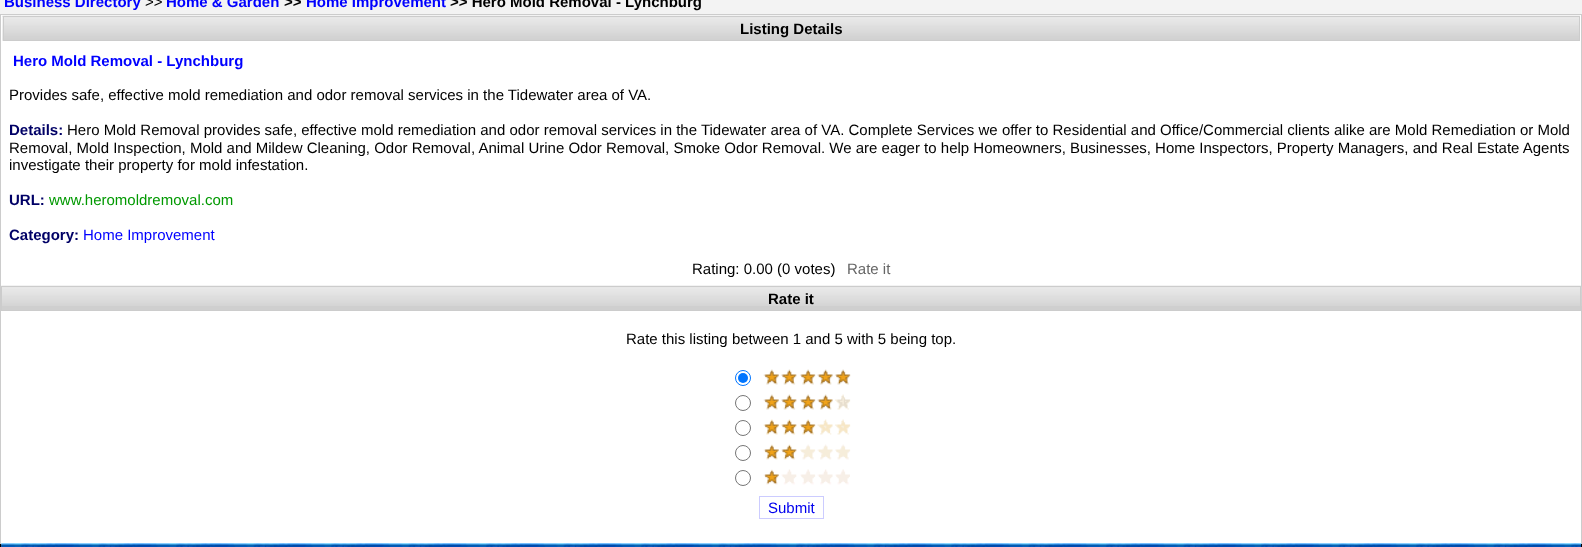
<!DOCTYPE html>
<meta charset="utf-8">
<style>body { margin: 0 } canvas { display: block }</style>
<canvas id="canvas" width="1582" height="547"></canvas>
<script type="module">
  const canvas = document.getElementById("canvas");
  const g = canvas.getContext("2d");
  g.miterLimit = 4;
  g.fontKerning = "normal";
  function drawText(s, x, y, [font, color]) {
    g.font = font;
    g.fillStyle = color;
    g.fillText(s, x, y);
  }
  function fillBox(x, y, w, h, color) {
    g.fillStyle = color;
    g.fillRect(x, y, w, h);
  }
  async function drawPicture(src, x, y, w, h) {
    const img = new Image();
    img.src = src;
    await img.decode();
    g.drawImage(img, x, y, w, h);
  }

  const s1 = ["bold 15px Liberation Sans", "#0000FF"];
  const s2 = ["15px Liberation Sans", "#000000"];
  const s3 = ["bold 15px Liberation Sans", "#000000"];
  const s4 = ["bold 15px Liberation Sans", "#000066"];
  const s5 = ["15px Liberation Sans", "#009900"];
  const s6 = ["15px Liberation Sans", "#0000FF"];
  const s7 = ["15px Liberation Sans", "#666666"];
  const s8 = ["15px Liberation Sans", "#0000EE"];

  fillBox(0, 0, 1582, 547, "#FFFFFF");
  await drawPicture("pic1.png", 1, 544, 1, 3);
  fillBox(0, 0, 1582, 14, "#F3F3F3");
  drawText("Business Directory", 4, 7, s1);
  drawText(">>", 145, 7, s2);
  drawText("Home & Garden", 166, 7, s1);
  drawText(">>", 284, 7, s3);
  drawText("Home Improvement", 306, 7, s1);
  drawText(">> Hero Mold Removal - Lynchburg", 450, 7, s3);
  fillBox(0, 14, 1582, 1, "#CCCCCC");
  fillBox(1581, 14, 1, 530, "#CCCCCC");
  fillBox(0, 14, 1, 530, "#CCCCCC");
  await drawPicture("pic2.png", 2, 15, 1578, 26);
  g.strokeStyle = "#CCCCCC";
  g.strokeRect(3.5, 16.5, 1576, 24);
  drawText("Listing Details", 740, 34, s3);
  drawText("Hero Mold Removal - Lynchburg", 13, 66, s1);
  drawText("Provides safe, effective mold remediation and odor removal services in the Tidewater area of VA.", 9, 100, s2);
  drawText("Details:", 9, 135, s4);
  drawText("Hero Mold Removal provides safe, effective mold remediation and odor removal services in the Tidewater area of VA. Complete Services we offer to Residential and Office/Commercial clients alike are Mold Remediation or Mold", 67, 135, s2);
  drawText("Removal, Mold Inspection, Mold and Mildew Cleaning, Odor Removal, Animal Urine Odor Removal, Smoke Odor Removal. We are eager to help Homeowners, Businesses, Home Inspectors, Property Managers, and Real Estate Agents", 9, 153, s2);
  drawText("investigate their property for mold infestation.", 9, 170, s2);
  drawText("URL:", 9, 205, s4);
  drawText("www.heromoldremoval.com", 49, 205, s5);
  drawText("Category:", 9, 240, s4);
  drawText("Home Improvement", 83, 240, s6);
  drawText("Rating: 0.00 (0 votes)", 692, 274, s2);
  drawText("Rate it", 847, 274, s7);
  fillBox(2, 306, 1578, 4, "#CFCFCF");
  await drawPicture("pic3.png", 1, 285, 1581, 21);
  g.strokeRect(1.5, 286.5, 1579, 24);
  drawText("Rate it", 768, 304, s3);
  drawText("Rate this listing between 1 and 5 with 5 being top.", 626, 344, s2);
  g.beginPath();
  g.arc(743, 378, 7.5, 0, Math.PI * 2);
  g.strokeStyle = "#0075FF";
  g.stroke();
  g.fillStyle = "#0075FF";
  g.beginPath();
  g.arc(743, 378, 5, 0, Math.PI * 2);
  g.fill();
  await drawPicture("pic4.png", 763, 369, 88, 16);
  g.beginPath();
  g.arc(743, 403, 7.5, 0, Math.PI * 2);
  g.strokeStyle = "#767676";
  g.stroke();
  await drawPicture("pic5.png", 763, 394, 88, 16);
  g.beginPath();
  g.arc(743, 428, 7.5, 0, Math.PI * 2);
  g.stroke();
  await drawPicture("pic6.png", 763, 419, 88, 16);
  g.beginPath();
  g.arc(743, 453, 7.5, 0, Math.PI * 2);
  g.stroke();
  await drawPicture("pic7.png", 763, 444, 88, 16);
  g.beginPath();
  g.arc(743, 478, 7.5, 0, Math.PI * 2);
  g.stroke();
  await drawPicture("pic8.png", 763, 469, 87, 16);
  g.strokeStyle = "#CCCCFF";
  g.strokeRect(759.5, 496.5, 64, 22);
  drawText("Submit", 768, 513, s8);
  fillBox(0, 544, 1, 3, "#000000");
  await drawPicture("pic9.png", 1, 543, 1581, 4);
  fillBox(1581, 544, 1, 3, "#000000");
</script>
